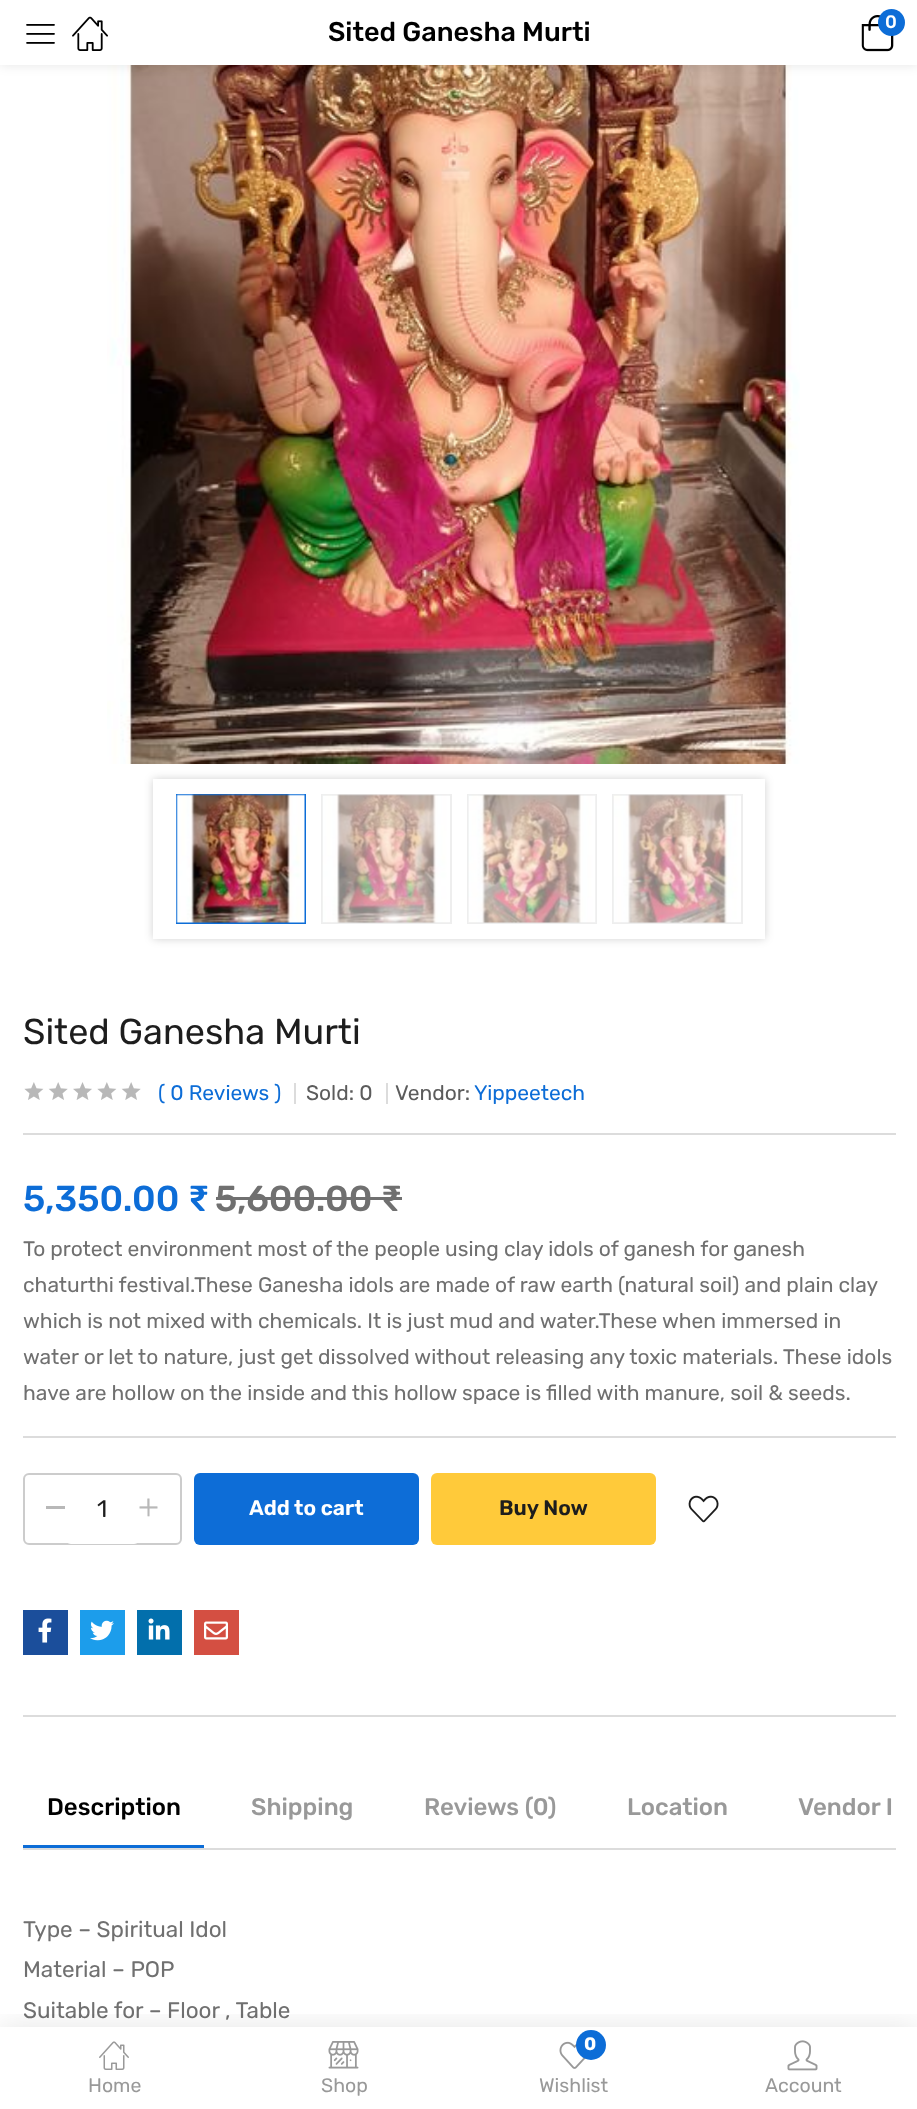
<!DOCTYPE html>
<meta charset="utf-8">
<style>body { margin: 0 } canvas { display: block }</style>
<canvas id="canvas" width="917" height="2109"></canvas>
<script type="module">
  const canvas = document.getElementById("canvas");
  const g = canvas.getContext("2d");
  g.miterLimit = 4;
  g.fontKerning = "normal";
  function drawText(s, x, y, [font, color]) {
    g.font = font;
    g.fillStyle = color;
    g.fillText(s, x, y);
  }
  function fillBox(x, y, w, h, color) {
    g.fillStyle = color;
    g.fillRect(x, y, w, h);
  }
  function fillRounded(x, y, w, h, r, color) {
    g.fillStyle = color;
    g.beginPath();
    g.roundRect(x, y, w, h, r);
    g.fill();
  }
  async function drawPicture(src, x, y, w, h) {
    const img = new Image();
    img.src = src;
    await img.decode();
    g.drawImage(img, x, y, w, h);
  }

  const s1 = ["500 27px Rubik", "#000000"];
  const s2 = ["500 18px Rubik", "#FFFFFF"];
  const s3 = ["36px Rubik", "#1D1D1D"];
  const s4 = ["21px Rubik", "#0D6DD7"];
  const s5 = ["21px Rubik", "#5C5C5C"];
  const s6 = ["500 36px Rubik", "#0D6DD7"];
  const s7 = ["500 36px Rubik", "#707070"];
  const s8 = ["21px Rubik", "#707070"];
  const s9 = ["24px Rubik", "#1D1D1D"];
  const s10 = ["600 21px Rubik", "#FFFFFF"];
  const s11 = ["600 21px Rubik", "#1D1D1D"];
  const s12 = ["500 24px Rubik", "#000000"];
  const s13 = ["500 24px Rubik", "#999999"];
  const s14 = ["22.5px Rubik", "#707070"];
  const s15 = ["19.5px Rubik", "#999999"];
  const s16 = ["bold 18px Rubik", "#FFFFFF"];

  fillBox(0, 0, 917, 2109, "#FFFFFF");
  await drawPicture("pic4.png", 107, 65, 693, 699);
  g.fillStyle = "rgba(0, 0, 0, 0.1)";
  g.filter = "blur(6px)";
  g.beginPath();
  g.rect(0, 0, 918, 65);
  g.fill();
  g.filter = "none";
  fillBox(0, 0, 917, 65, "#FFFFFF");
  await drawPicture("pic1.png", 26, 24, 29, 20);
  await drawPicture("pic2.png", 72, 16, 36, 35);
  drawText("Sited Ganesha Murti", 328, 41, s1);
  await drawPicture("pic3.png", 861, 15, 33, 37);
  g.fillStyle = "#0D6DD7";
  g.beginPath();
  g.arc(891.5, 22.5, 13.5, 0, Math.PI * 2);
  g.fill();
  drawText("0", 885, 28, s2);
  g.save();
  g.beginPath();
  g.moveTo(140, 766);
  g.lineTo(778, 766);
  g.lineTo(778, 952);
  g.lineTo(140, 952);
  g.closePath();
  g.moveTo(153, 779);
  g.lineTo(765, 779);
  g.lineTo(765, 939);
  g.lineTo(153, 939);
  g.closePath();
  g.clip("evenodd");
  g.fillStyle = "rgba(0, 0, 0, 0.18)";
  g.filter = "blur(4px)";
  g.beginPath();
  g.rect(153, 779, 612, 160);
  g.fill();
  g.filter = "none";
  g.restore();
  g.strokeStyle = "#0D6DD7";
  g.lineWidth = 2;
  g.strokeRect(177, 795, 128, 128);
  await drawPicture("pic5.png", 176, 794, 129, 129);
  g.strokeStyle = "#EEEEEE";
  g.strokeRect(322, 795, 129, 128);
  await drawPicture("pic6.png", 322, 794, 128, 129);
  g.strokeRect(468, 795, 128, 128);
  await drawPicture("pic7.png", 468, 794, 128, 129);
  g.strokeRect(613, 795, 129, 128);
  await drawPicture("pic8.png", 613, 794, 128, 129);
  fillBox(23, 1133, 873, 2, "#DCDCDC");
  drawText("Sited Ganesha Murti", 23, 1044, s3);
  await drawPicture("pic9.png", 24, 1082, 117, 18);
  drawText("( 0 Reviews )", 158, 1100, s4);
  fillBox(294, 1083, 2, 21, "#DCDCDC");
  drawText("Sold: 0", 306, 1100, s5);
  fillBox(386, 1083, 2, 21, "#DCDCDC");
  drawText("Vendor:", 395, 1100, s5);
  drawText("Yippeetech", 474, 1100, s4);
  drawText("5,350.00 ₹", 23, 1211, s6);
  drawText("5,600.00 ₹", 215, 1211, s7);
  fillBox(216, 1197, 186, 3, "#707070");
  drawText("To protect environment most of the people using clay idols of ganesh for ganesh", 23, 1256, s8);
  drawText("chaturthi festival.These Ganesha idols are made of raw earth (natural soil) and plain clay", 23, 1292, s8);
  drawText("which is not mixed with chemicals. It is just mud and water.These when immersed in", 23, 1328, s8);
  drawText("water or let to nature, just get dissolved without releasing any toxic materials. These idols", 23, 1364, s8);
  drawText("have are hollow on the inside and this hollow space is filled with manure, soil & seeds.", 23, 1400, s8);
  fillBox(23, 1436, 873, 2, "#DCDCDC");
  g.beginPath();
  g.roundRect(24, 1474, 157, 70, 5);
  g.strokeStyle = "#CCCCCC";
  g.stroke();
  fillBox(46, 1506, 19, 3, "#B8B8B8");
  fillRounded(65, 1475, 75, 69, 6, "#FFFFFF");
  drawText("1", 97, 1517, s9);
  await drawPicture("pic10.png", 139, 1498, 19, 19);
  fillRounded(194, 1473, 225, 72, 6, "#0D6DD7");
  drawText("Add to cart", 249, 1515, s10);
  fillRounded(431, 1473, 225, 72, 6, "#FFCA3A");
  drawText("Buy Now", 499, 1515, s11);
  await drawPicture("pic11.png", 688, 1495, 31, 28);
  fillBox(23, 1610, 45, 45, "#1B4E9B");
  await drawPicture("pic12.png", 38, 1618, 14, 25);
  fillBox(80, 1610, 45, 45, "#1C9DEB");
  await drawPicture("pic13.png", 90, 1620, 24, 21);
  fillBox(137, 1610, 45, 45, "#026FAC");
  await drawPicture("pic14.png", 148, 1618, 22, 22);
  fillBox(194, 1610, 45, 45, "#D44F42");
  await drawPicture("pic15.png", 204, 1621, 24, 19);
  fillBox(23, 1715, 873, 2, "#DCDCDC");
  fillBox(23, 1848, 873, 2, "#DCDCDC");
  drawText("Description", 47, 1815, s12);
  fillBox(23, 1845, 181, 3, "#0D6DD7");
  drawText("Shipping", 251, 1815, s13);
  drawText("Reviews (0)", 424, 1815, s13);
  drawText("Location", 627, 1815, s13);
  drawText("Vendor I", 798, 1815, s13);
  drawText("Type – Spiritual Idol", 23, 1937, s14);
  drawText("Material – POP", 23, 1977, s14);
  drawText("Suitable for – Floor , Table", 23, 2018, s14);
  g.save();
  g.beginPath();
  g.rect(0, 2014, 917, 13);
  g.clip();
  g.fillStyle = "rgba(0, 0, 0, 0.1)";
  g.filter = "blur(15px)";
  g.beginPath();
  g.rect(0, 2027, 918, 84);
  g.fill();
  g.filter = "none";
  g.restore();
  await drawPicture("pic16.png", 99, 2041, 30, 29);
  drawText("Home", 88, 2092, s15);
  await drawPicture("pic17.png", 328, 2041, 31, 28);
  drawText("Shop", 321, 2092, s15);
  await drawPicture("pic18.png", 559, 2041, 27, 28);
  g.fillStyle = "#0D6DD7";
  g.beginPath();
  g.arc(591, 2045, 15, 0, Math.PI * 2);
  g.fill();
  drawText("0", 584, 2050, s16);
  drawText("Wishlist", 539, 2092, s15);
  await drawPicture("pic19.png", 787, 2040, 31, 31);
  drawText("Account", 765, 2092, s15);
</script>
